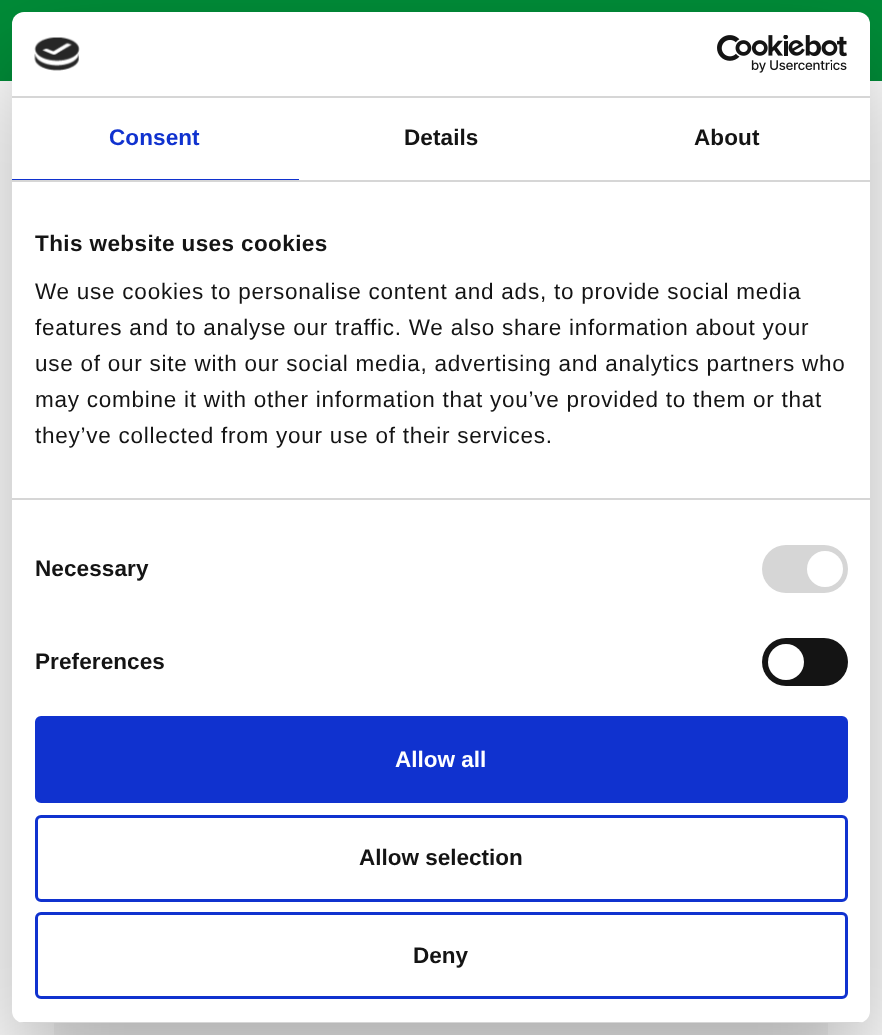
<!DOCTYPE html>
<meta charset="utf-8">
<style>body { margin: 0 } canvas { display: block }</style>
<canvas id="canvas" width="882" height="1035"></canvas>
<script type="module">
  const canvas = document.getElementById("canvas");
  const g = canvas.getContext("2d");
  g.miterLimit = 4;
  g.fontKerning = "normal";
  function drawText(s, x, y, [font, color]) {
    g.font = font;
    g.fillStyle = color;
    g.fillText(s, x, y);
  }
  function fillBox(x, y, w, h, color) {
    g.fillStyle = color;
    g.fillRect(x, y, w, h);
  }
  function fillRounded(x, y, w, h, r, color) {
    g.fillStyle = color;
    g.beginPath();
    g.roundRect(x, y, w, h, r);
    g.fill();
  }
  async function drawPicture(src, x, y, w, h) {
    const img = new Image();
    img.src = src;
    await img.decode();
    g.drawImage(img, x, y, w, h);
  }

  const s1 = ["bold 22.5px Liberation Sans", "#1032CF"];
  const s2 = ["bold 22.5px Liberation Sans", "#141414"];
  const s3 = ["22.5px Liberation Sans", "#141414"];
  const s4 = ["bold 22.5px Liberation Sans", "#FFFFFF"];

  fillBox(0, 0, 882, 1035, "#FFFFFF");
  fillBox(0, 0, 882, 81, "#008C38");
  fillBox(54, 1023, 774, 12, "#F7F7F7");
  g.fillStyle = "rgba(0, 0, 0, 0.3)";
  g.filter = "blur(51px)";
  g.beginPath();
  g.roundRect(12, 60, 858, 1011, 12);
  g.fill();
  g.filter = "none";
  fillRounded(12, 12, 858, 1011, 12, "#FFFFFF");
  fillBox(12, 96, 858, 2, "#D6D6D6");
  await drawPicture("pic1.png", 34, 37, 46, 34);
  await drawPicture("pic2.png", 717, 35, 130, 38);
  fillBox(12, 180, 858, 2, "#D6D6D6");
  fillBox(12, 179, 287, 1, "#1032CF");
  g.letterSpacing = "0.1px";
  drawText("Consent", 109, 145, s1);
  drawText("Details", 404, 145, s2);
  drawText("About", 694, 145, s2);
  fillBox(12, 498, 858, 2, "#D6D6D6");
  g.letterSpacing = "0.4px";
  drawText("This website uses cookies", 35, 251, s2);
  g.letterSpacing = "0.75px";
  drawText("We use cookies to personalise content and ads, to provide social media", 35, 299, s3);
  drawText("features and to analyse our traffic. We also share information about your", 35, 335, s3);
  drawText("use of our site with our social media, advertising and analytics partners who", 35, 371, s3);
  drawText("may combine it with other information that you’ve provided to them or that", 35, 407, s3);
  drawText("they’ve collected from your use of their services.", 35, 443, s3);
  g.letterSpacing = "0.1px";
  drawText("Necessary", 35, 576, s2);
  fillRounded(762, 545, 86, 48, 24, "#D6D6D6");
  g.fillStyle = "#FFFFFF";
  g.beginPath();
  g.arc(825, 569, 18, 0, Math.PI * 2);
  g.fill();
  drawText("Preferences", 35, 669, s2);
  fillRounded(762, 638, 86, 48, 24, "#141414");
  g.fillStyle = "#FFFFFF";
  g.beginPath();
  g.arc(786, 662, 18, 0, Math.PI * 2);
  g.fill();
  g.save();
  g.beginPath();
  g.roundRect(12, 12, 858, 1011, 12);
  g.clip();
  fillBox(12, 1022, 858, 1, "#D6D6D6");
  g.restore();
  g.fillStyle = "#1032CF";
  g.beginPath();
  g.roundRect(36.5, 717.5, 810, 84, 4.5);
  g.fill();
  g.strokeStyle = "#1032CF";
  g.lineWidth = 3;
  g.stroke();
  g.letterSpacing = "0px";
  drawText("Allow all", 395, 767, s4);
  g.beginPath();
  g.roundRect(36.5, 816.5, 810, 84, 4.5);
  g.stroke();
  drawText("Allow selection", 359, 865, s2);
  g.beginPath();
  g.roundRect(36.5, 913.5, 810, 84, 4.5);
  g.stroke();
  drawText("Deny", 413, 963, s2);
</script>
